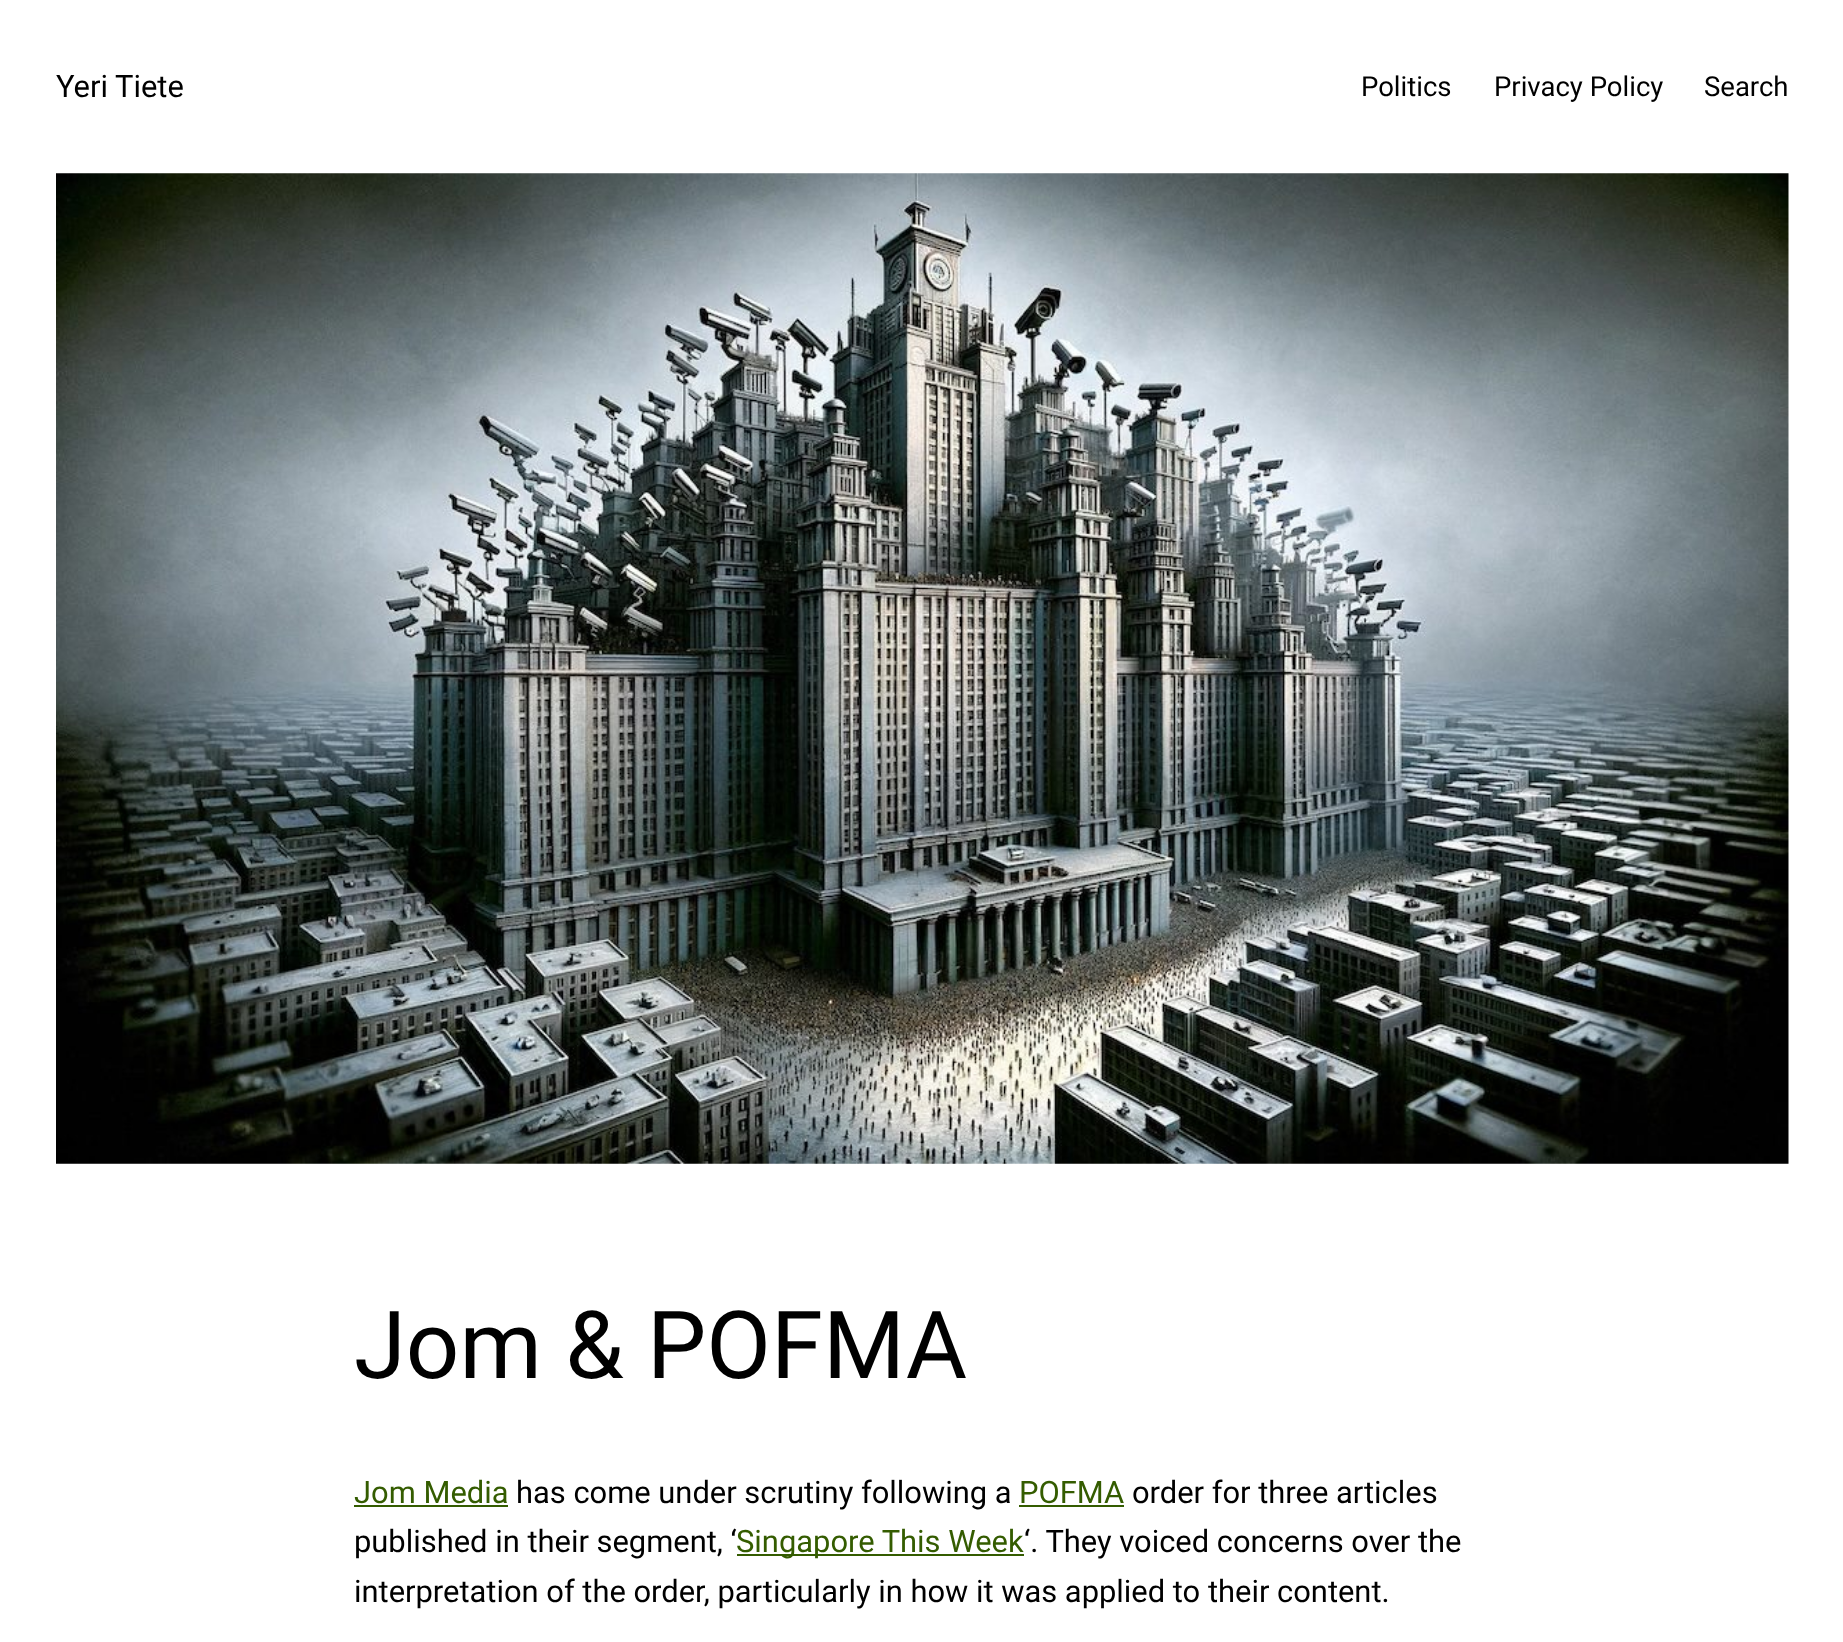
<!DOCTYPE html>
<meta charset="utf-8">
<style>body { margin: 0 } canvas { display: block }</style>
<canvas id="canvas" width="1843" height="1642"></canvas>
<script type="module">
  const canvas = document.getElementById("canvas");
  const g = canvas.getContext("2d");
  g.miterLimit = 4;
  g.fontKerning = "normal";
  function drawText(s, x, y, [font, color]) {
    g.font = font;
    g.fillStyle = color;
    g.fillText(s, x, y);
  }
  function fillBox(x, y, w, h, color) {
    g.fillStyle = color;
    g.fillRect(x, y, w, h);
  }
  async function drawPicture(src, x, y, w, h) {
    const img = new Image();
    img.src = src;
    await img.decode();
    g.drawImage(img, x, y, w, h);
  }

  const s1 = ["30.9px Roboto", "#000000"];
  const s2 = ["27.5px Roboto", "#000000"];
  const s3 = ["94px Roboto", "#000000"];
  const s4 = ["30.9px Roboto", "#345C00"];

  fillBox(0, 0, 1843, 1642, "#FFFFFF");
  drawText("Yeri Tiete", 56, 97, s1);
  drawText("Politics", 1361, 96, s2);
  drawText("Privacy Policy", 1494, 96, s2);
  drawText("Search", 1704, 96, s2);
  await drawPicture("pic1.png", 56, 173, 1733, 991);
  drawText("Jom & POFMA", 354, 1378, s3);
  drawText("Jom Media", 354, 1503, s4);
  fillBox(354, 1505, 154, 2, "#345C00");
  drawText("has come under scrutiny following a", 516, 1503, s1);
  drawText("POFMA", 1019, 1503, s4);
  fillBox(1019, 1505, 105, 2, "#345C00");
  drawText("order for three articles", 1132, 1503, s1);
  drawText("published in their segment, ‘", 354, 1552, s1);
  fillBox(737, 1554, 287, 2, "#345C00");
  drawText("Singapore This Week", 736, 1552, s4);
  drawText("‘. They voiced concerns over the", 1024, 1552, s1);
  drawText("interpretation of the order, particularly in how it was applied to their content.", 354, 1602, s1);
</script>
